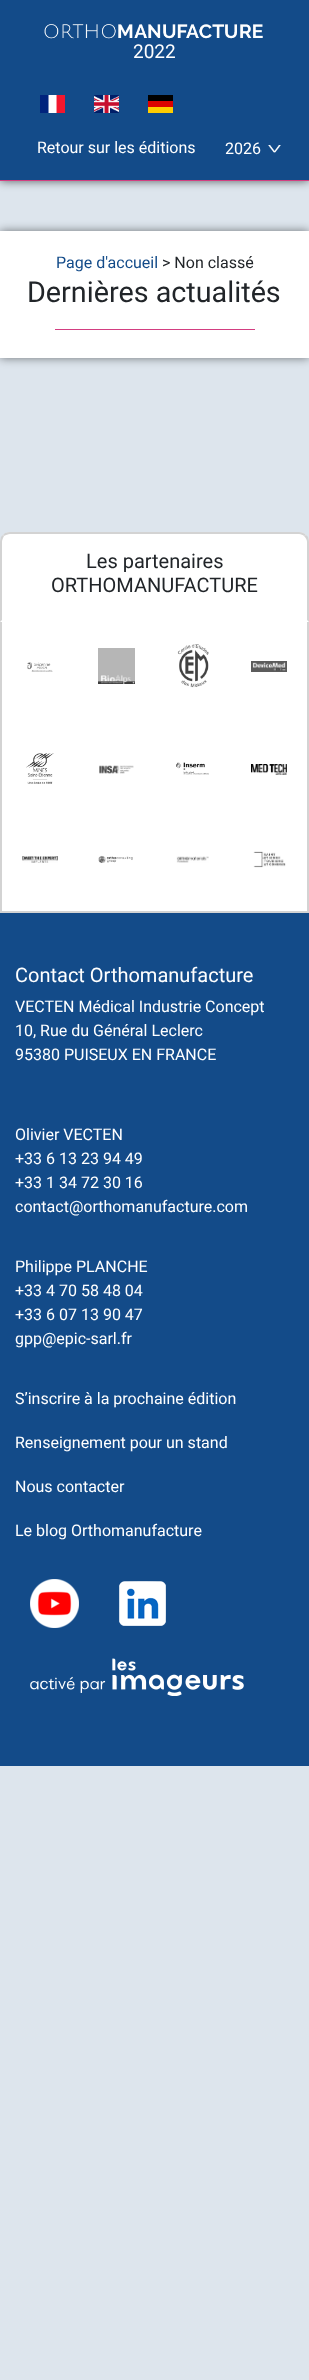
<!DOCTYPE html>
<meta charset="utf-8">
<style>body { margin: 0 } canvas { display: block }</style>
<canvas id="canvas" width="309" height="2380"></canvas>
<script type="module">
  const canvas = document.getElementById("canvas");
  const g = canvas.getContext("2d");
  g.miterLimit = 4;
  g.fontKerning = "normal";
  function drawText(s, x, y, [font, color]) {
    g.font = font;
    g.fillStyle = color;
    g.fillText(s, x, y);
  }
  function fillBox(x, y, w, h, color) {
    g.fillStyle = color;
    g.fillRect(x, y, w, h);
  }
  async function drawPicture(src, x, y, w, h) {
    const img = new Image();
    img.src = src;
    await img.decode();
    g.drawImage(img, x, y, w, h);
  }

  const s1 = ["19px Roboto", "#FFFFFF"];
  const s2 = ["16px Roboto", "#FFFFFF"];
  const s3 = ["16px Roboto", "#134B89"];
  const s4 = ["16px Roboto", "#212529"];
  const s5 = ["28.75px Roboto", "#212529"];
  const s6 = ["20px Roboto", "#212529"];
  const s7 = ["20px Roboto", "#FFFFFF"];

  fillBox(0, 0, 309, 2380, "#DDE5ED");
  g.fillStyle = "rgba(0, 0, 0, 0.6)";
  g.filter = "blur(5px)";
  g.beginPath();
  g.rect(0, 0, 309, 181);
  g.fill();
  g.filter = "none";
  fillBox(0, 0, 309, 180, "#134B89");
  fillBox(0, 180, 309, 1, "#D33E81");
  await drawPicture("pic1.png", 44, 24, 219, 15);
  drawText("2022", 133, 58, s1);
  await drawPicture("pic2.png", 40, 95, 25, 18);
  await drawPicture("pic3.png", 94, 95, 25, 18);
  await drawPicture("pic4.png", 148, 95, 25, 18);
  drawText("Retour sur les éditions", 37, 153, s2);
  await drawPicture("pic5.png", 268, 145, 13, 8);
  drawText("2026", 225, 154, s2);
  g.fillStyle = "rgba(0, 0, 0, 0.5)";
  g.filter = "blur(5px)";
  g.beginPath();
  g.rect(0, 231, 309, 127);
  g.fill();
  g.filter = "none";
  fillBox(0, 231, 309, 127, "#FFFFFF");
  drawText("Page d'accueil", 56, 268, s3);
  drawText("> Non classé", 162, 268, s4);
  drawText("Dernières actualités", 27, 302, s5);
  fillBox(55, 329, 200, 1, "#D33E81");
  g.fillStyle = "#FFFFFF";
  g.beginPath();
  g.rect(1, 621, 307, 291);
  g.fill();
  g.strokeStyle = "#D3D3D3";
  g.lineWidth = 2;
  g.stroke();
  g.beginPath();
  g.roundRect(0, 532, 309, 90, [10, 10, 0, 0]);
  g.fill();
  g.fillStyle = "#D3D3D3";
  g.beginPath();
  g.moveTo(10, 532);
  g.bezierCurveTo(7, 532, 4, 533, 3, 535);
  g.lineTo(4, 536);
  g.bezierCurveTo(6, 535, 8, 534, 10, 534);
  g.lineTo(299, 534);
  g.bezierCurveTo(301, 534, 303, 535, 304, 536);
  g.lineTo(306, 535);
  g.bezierCurveTo(304, 533, 302, 532, 299, 532);
  g.closePath();
  g.fill();
  g.beginPath();
  g.moveTo(309, 622);
  g.lineTo(309, 542);
  g.bezierCurveTo(309, 539, 308, 536, 306, 535);
  g.lineTo(304, 536);
  g.bezierCurveTo(306, 538, 307, 540, 307, 542);
  g.lineTo(307, 620);
  g.closePath();
  g.fill();
  g.beginPath();
  g.moveTo(0, 622);
  g.lineTo(2, 620);
  g.lineTo(2, 542);
  g.bezierCurveTo(2, 540, 3, 538, 4, 536);
  g.lineTo(3, 535);
  g.bezierCurveTo(1, 536, 0, 539, 0, 542);
  g.closePath();
  g.fill();
  drawText("Les partenaires", 86, 568, s6);
  drawText("ORTHOMANUFACTURE", 51, 592, s6);
  await drawPicture("pic6.png", 27, 662, 26, 10);
  await drawPicture("pic7.png", 98, 648, 37, 36);
  await drawPicture("pic8.png", 177, 644, 32, 44);
  await drawPicture("pic9.png", 251, 661, 36, 11);
  await drawPicture("pic10.png", 26, 753, 28, 31);
  await drawPicture("pic11.png", 99, 765, 35, 9);
  await drawPicture("pic12.png", 176, 762, 33, 13);
  await drawPicture("pic13.png", 251, 764, 36, 11);
  await drawPicture("pic14.png", 22, 856, 36, 7);
  await drawPicture("pic15.png", 98, 855, 35, 8);
  await drawPicture("pic16.png", 176, 856, 33, 7);
  await drawPicture("pic17.png", 253, 851, 33, 17);
  fillBox(0, 913, 309, 853, "#134B89");
  drawText("Contact Orthomanufacture", 15, 982, s7);
  drawText("VECTEN Médical Industrie Concept", 15, 1012, s2);
  drawText("10, Rue du Général Leclerc", 15, 1036, s2);
  drawText("95380 PUISEUX EN FRANCE", 15, 1060, s2);
  drawText("Olivier VECTEN", 15, 1140, s2);
  drawText("+33 6 13 23 94 49", 15, 1164, s2);
  drawText("+33 1 34 72 30 16", 15, 1188, s2);
  drawText("contact@orthomanufacture.com", 15, 1212, s2);
  drawText("Philippe PLANCHE", 15, 1272, s2);
  drawText("+33 4 70 58 48 04", 15, 1296, s2);
  drawText("+33 6 07 13 90 47", 15, 1320, s2);
  drawText("gpp@epic-sarl.fr", 15, 1344, s2);
  drawText("S’inscrire à la prochaine édition", 15, 1404, s2);
  drawText("Renseignement pour un stand", 15, 1448, s2);
  drawText("Nous contacter", 15, 1492, s2);
  drawText("Le blog Orthomanufacture", 15, 1536, s2);
  await drawPicture("pic18.png", 30, 1579, 49, 49);
  await drawPicture("pic19.png", 119, 1581, 47, 45);
  await drawPicture("pic20.png", 30, 1658, 214, 38);
</script>
